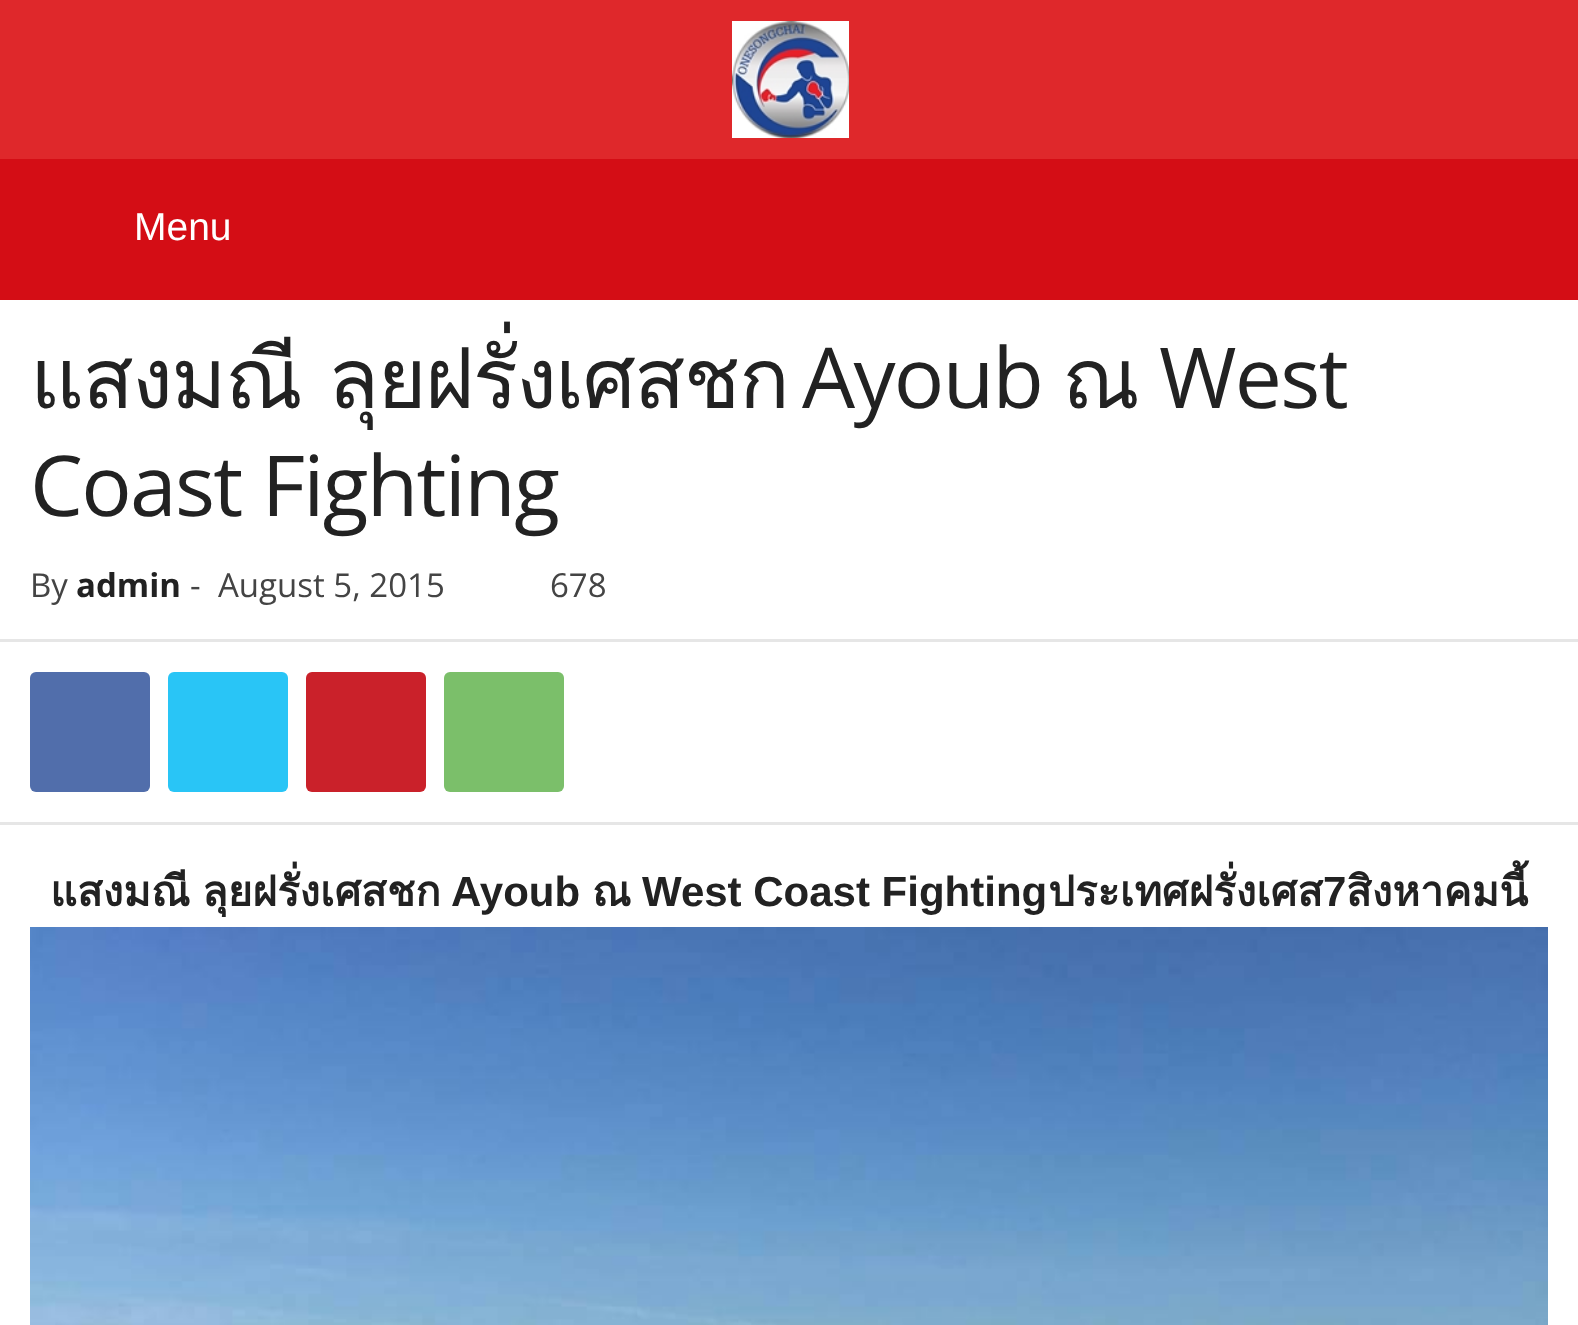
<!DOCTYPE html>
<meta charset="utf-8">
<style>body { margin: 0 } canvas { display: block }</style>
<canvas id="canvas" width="1578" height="1325"></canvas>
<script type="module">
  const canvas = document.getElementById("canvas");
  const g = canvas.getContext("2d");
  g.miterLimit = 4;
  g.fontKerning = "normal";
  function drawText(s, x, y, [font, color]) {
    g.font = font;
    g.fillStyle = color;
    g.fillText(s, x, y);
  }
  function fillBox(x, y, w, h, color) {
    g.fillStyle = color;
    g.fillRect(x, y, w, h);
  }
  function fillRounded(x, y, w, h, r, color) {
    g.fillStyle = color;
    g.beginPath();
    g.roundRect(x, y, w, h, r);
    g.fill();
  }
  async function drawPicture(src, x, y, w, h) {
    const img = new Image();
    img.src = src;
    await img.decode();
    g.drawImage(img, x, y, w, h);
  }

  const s1 = ["39px Liberation Sans", "#FFFFFF"];
  const s2 = ["84px Loma", "#222222"];
  const s3 = ["84px Open Sans", "#222222"];
  const s4 = ["33px Open Sans", "#444444"];
  const s5 = ["bold 33px Open Sans", "#222222"];
  const s6 = ["bold 42px Loma", "#222222"];
  const s7 = ["bold 42px Liberation Sans", "#222222"];

  fillBox(0, 0, 1578, 1325, "#FFFFFF");
  fillBox(0, 0, 1578, 159, "#DF282B");
  await drawPicture("pic1.png", 732, 21, 117, 117);
  fillBox(0, 159, 1578, 141, "#D40D15");
  drawText("Menu", 134, 240, s1);
  g.letterSpacing = "-1.7px";
  drawText("แสงมณี ลุยฝรั่งเศสชก", 30, 408, s2);
  drawText("Ayoub", 802, 408, s3);
  drawText("ณ", 1062, 408, s2);
  drawText("West", 1159, 408, s3);
  drawText("Coast Fighting", 30, 516, s3);
  g.letterSpacing = "0px";
  drawText("By", 30, 597, s4);
  drawText("admin", 76, 597, s5);
  drawText("-", 190, 597, s4);
  drawText("August 5, 2015", 218, 597, s4);
  drawText("678", 550, 597, s4);
  fillBox(0, 639, 1578, 3, "#E6E6E6");
  fillRounded(30, 672, 120, 120, 6, "#516EAB");
  fillRounded(168, 672, 120, 120, 6, "#29C5F6");
  fillRounded(306, 672, 120, 120, 6, "#CA212A");
  fillRounded(444, 672, 120, 120, 6, "#7BBF6A");
  fillBox(0, 822, 1578, 3, "#E6E6E6");
  drawText("แสงมณี", 50, 906, s6);
  drawText("ลุยฝรั่งเศสชก", 202, 906, s6);
  drawText("Ayoub", 451, 906, s7);
  drawText("West Coast Fighting", 642, 906, s7);
  drawText("ประเทศฝรั่งเศส", 1048, 906, s6);
  drawText("7", 1323, 906, s7);
  drawText("สิงหาคมนี้", 1346, 906, s6);
  drawText("ณ", 592, 906, s6);
  await drawPicture("pic2.png", 30, 927, 1518, 398);
</script>
